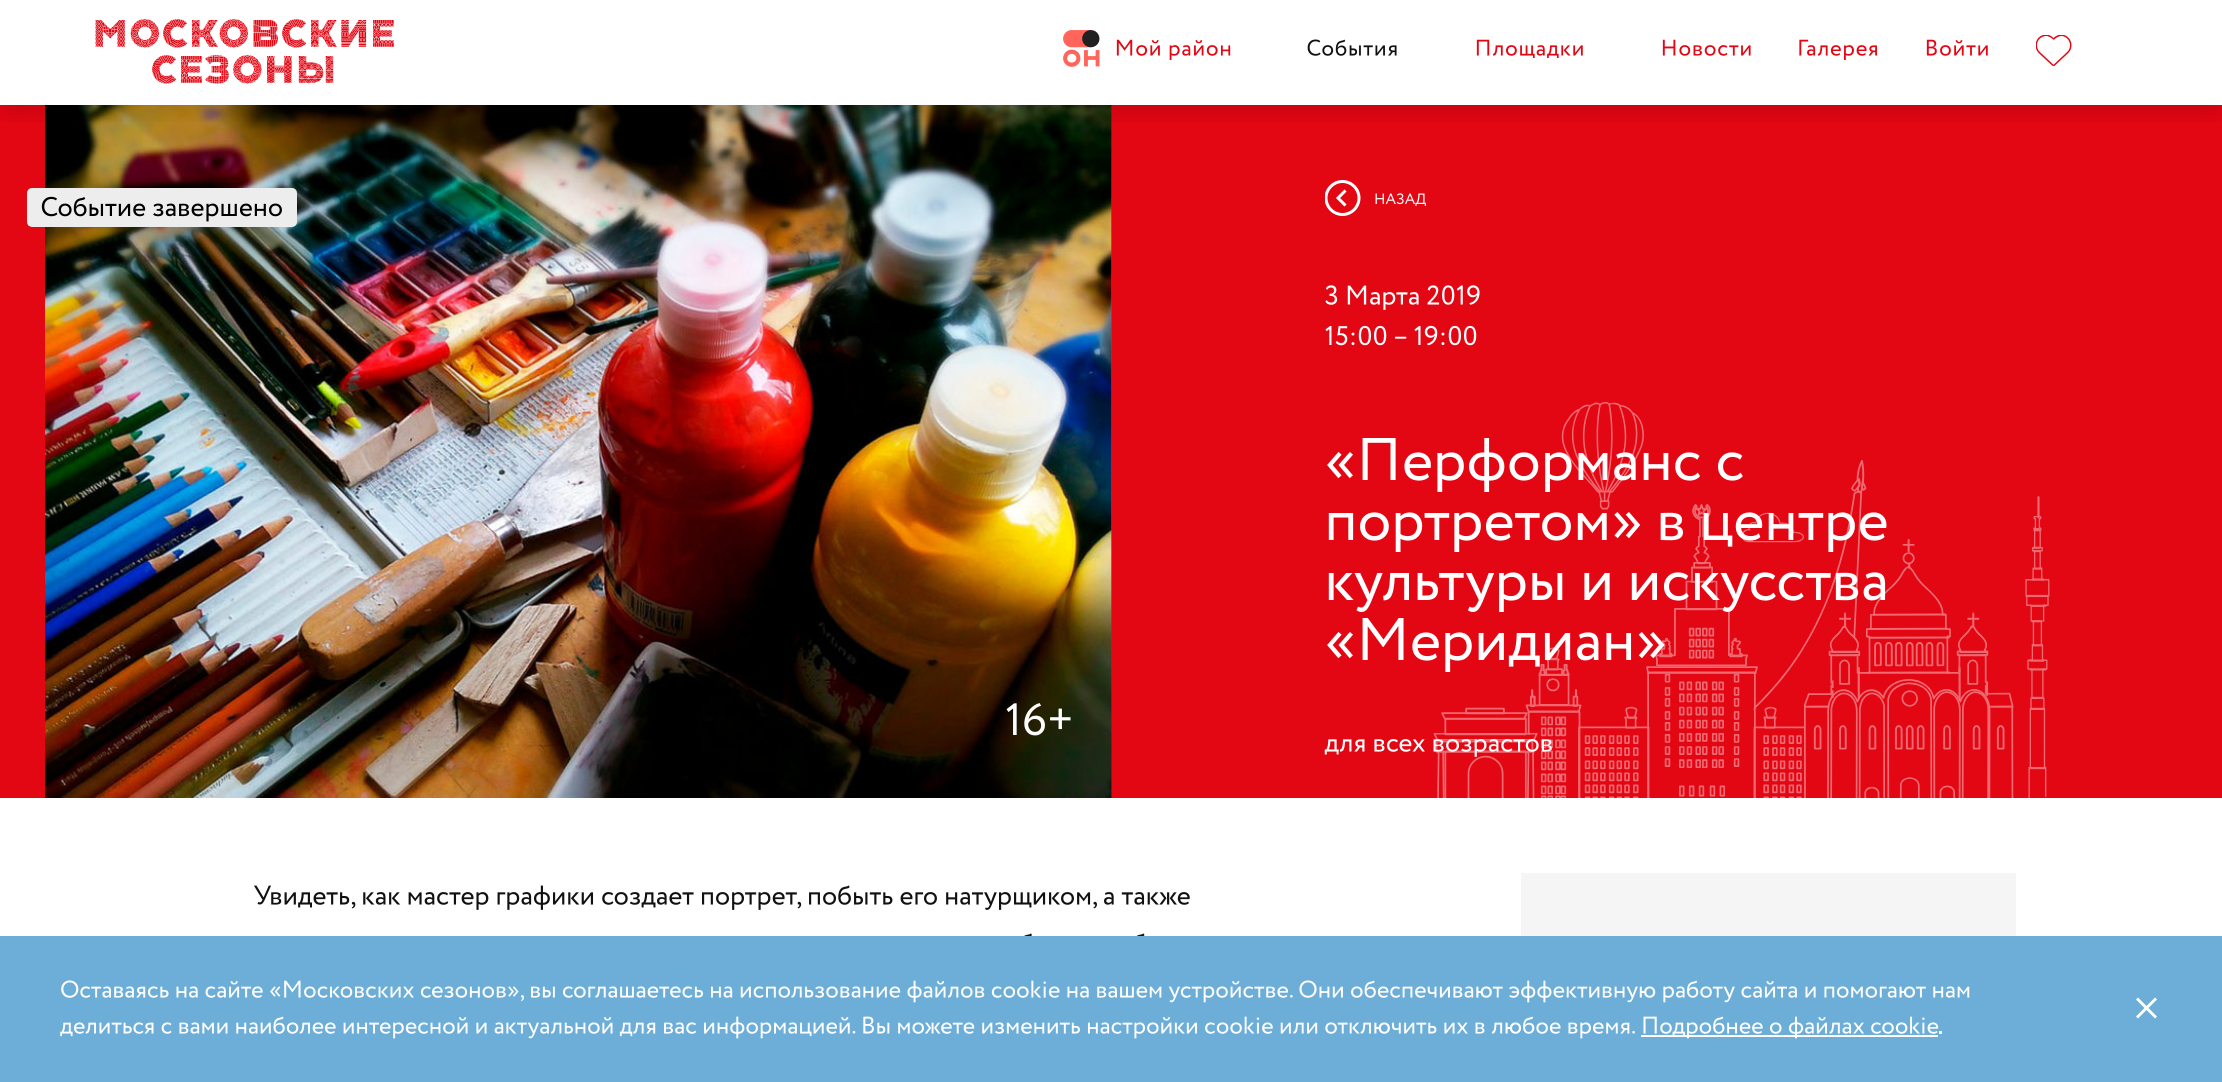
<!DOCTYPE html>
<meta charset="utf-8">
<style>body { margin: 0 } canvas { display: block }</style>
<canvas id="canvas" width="2222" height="1082"></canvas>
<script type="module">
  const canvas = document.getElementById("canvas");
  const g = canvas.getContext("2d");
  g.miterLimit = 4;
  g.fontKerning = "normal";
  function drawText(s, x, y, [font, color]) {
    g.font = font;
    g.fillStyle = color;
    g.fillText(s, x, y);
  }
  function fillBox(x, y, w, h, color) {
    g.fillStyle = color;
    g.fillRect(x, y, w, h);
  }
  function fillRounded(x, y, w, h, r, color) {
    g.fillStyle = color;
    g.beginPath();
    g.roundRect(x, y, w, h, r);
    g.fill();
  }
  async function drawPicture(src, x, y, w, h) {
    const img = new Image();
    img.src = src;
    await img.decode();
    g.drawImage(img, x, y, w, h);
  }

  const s1 = ["45px 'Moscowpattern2'", "#E30613"];

  fillBox(0, 0, 2222, 1082, "#FFFFFF");
  fillBox(0, 105, 2222, 693, "#E30613");
  await drawPicture("pic9.png", 45, 105, 1067, 693);
  g.save();
  g.beginPath();
  g.rect(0, 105, 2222, 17);
  g.clip();
  g.fillStyle = "rgba(0, 0, 0, 0.15)";
  g.filter = "blur(11px)";
  g.beginPath();
  g.rect(0, 5, 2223, 105);
  g.fill();
  g.filter = "none";
  g.restore();
  drawText("МОСКОВСКИЕ", 92, 47, s1);
  drawText("СЕЗОНЫ", 150, 83, s1);
  await drawPicture("pic1.png", 1063, 30, 37, 37);
  await drawPicture("pic2.png", 1116, 39, 115, 21);
  await drawPicture("pic3.png", 1307, 39, 90, 17);
  await drawPicture("pic4.png", 1476, 39, 107, 19);
  await drawPicture("pic5.png", 1662, 39, 89, 17);
  await drawPicture("pic6.png", 1799, 39, 78, 21);
  await drawPicture("pic7.png", 1926, 39, 62, 17);
  await drawPicture("pic8.png", 2036, 35, 36, 31);
  fillRounded(27, 188, 270, 39, 5, "#EDEDED");
  await drawPicture("pic10.png", 41, 196, 241, 26);
  await drawPicture("pic11.png", 1006, 703, 65, 33);
  await drawPicture("pic12.png", 1325, 180, 36, 36);
  await drawPicture("pic13.png", 1375, 193, 51, 13);
  await drawPicture("pic14.png", 1325, 285, 155, 25);
  await drawPicture("pic15.png", 1325, 325, 152, 21);
  await drawPicture("pic21.png", 1433, 402, 617, 396);
  await drawPicture("pic16.png", 1327, 438, 416, 54);
  await drawPicture("pic17.png", 1328, 512, 559, 40);
  await drawPicture("pic18.png", 1328, 572, 558, 40);
  await drawPicture("pic19.png", 1327, 618, 338, 54);
  await drawPicture("pic20.png", 1324, 739, 228, 18);
  await drawPicture("pic22.png", 254, 885, 936, 25);
  await drawPicture("pic23.png", 1024, 933, 121, 3);
  fillBox(1521, 873, 495, 63, "#F5F5F5");
  fillBox(0, 936, 2222, 146, "#6DAED8");
  await drawPicture("pic24.png", 61, 980, 1909, 23);
  await drawPicture("pic25.png", 60, 1016, 1575, 23);
  fillBox(1641, 1035, 297, 2, "#FFFFFF");
  await drawPicture("pic26.png", 1643, 1016, 296, 23);
  fillBox(1939, 1031, 3, 3, "#FFFFFF");
  g.beginPath();
  g.moveTo(2138, 997.5);
  g.lineTo(2157, 1016.5);
  g.lineTo(2155, 1018.5);
  g.lineTo(2136, 999.5);
  g.closePath();
  g.fill();
  g.beginPath();
  g.moveTo(2136, 1016.5);
  g.lineTo(2155, 997.5);
  g.lineTo(2157, 999.5);
  g.lineTo(2138, 1018.5);
  g.closePath();
  g.fill();
</script>
